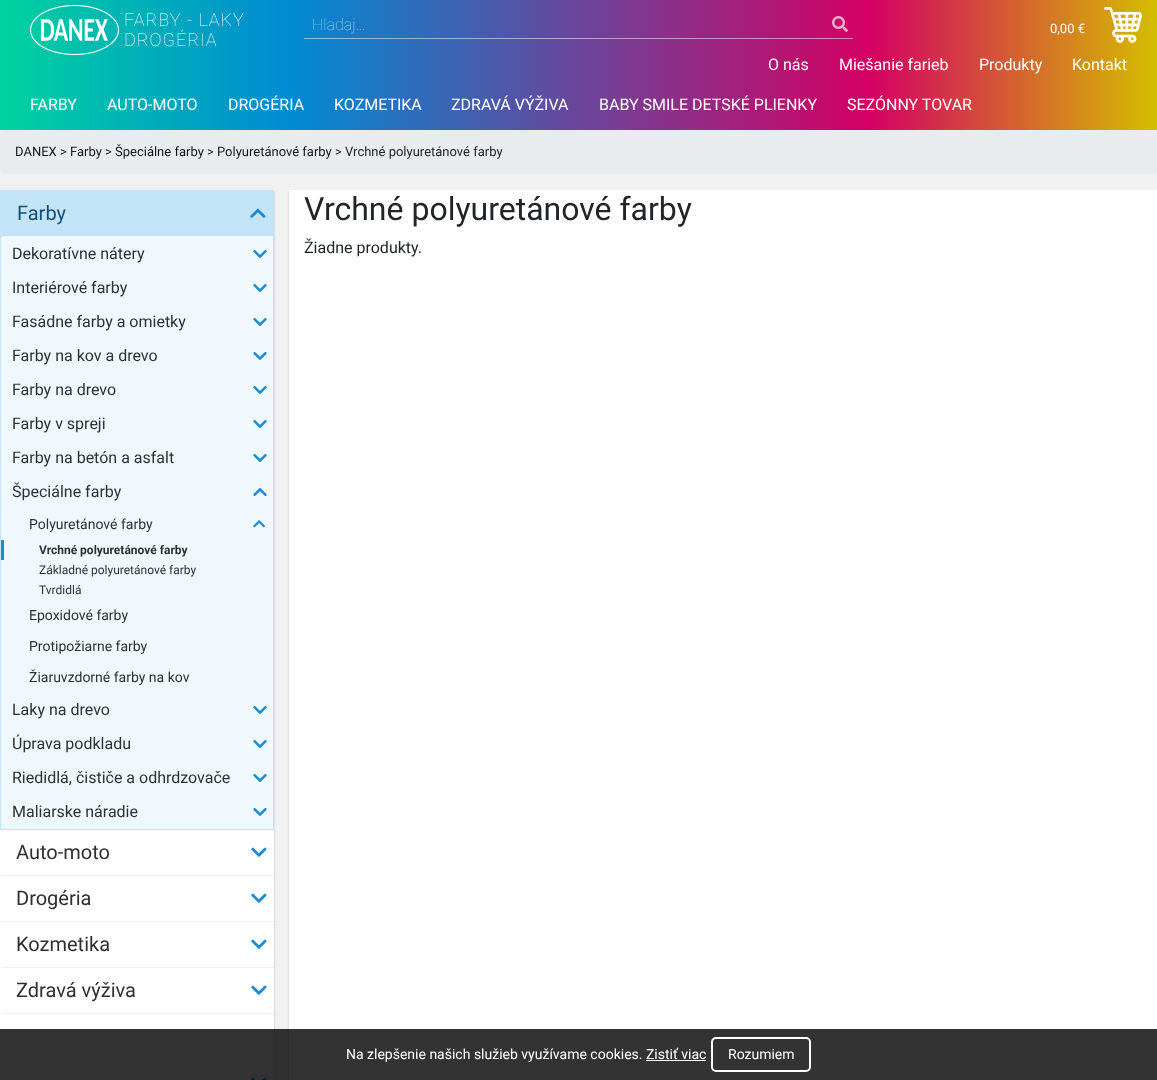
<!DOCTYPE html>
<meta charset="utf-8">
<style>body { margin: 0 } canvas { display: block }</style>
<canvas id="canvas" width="1157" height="1080"></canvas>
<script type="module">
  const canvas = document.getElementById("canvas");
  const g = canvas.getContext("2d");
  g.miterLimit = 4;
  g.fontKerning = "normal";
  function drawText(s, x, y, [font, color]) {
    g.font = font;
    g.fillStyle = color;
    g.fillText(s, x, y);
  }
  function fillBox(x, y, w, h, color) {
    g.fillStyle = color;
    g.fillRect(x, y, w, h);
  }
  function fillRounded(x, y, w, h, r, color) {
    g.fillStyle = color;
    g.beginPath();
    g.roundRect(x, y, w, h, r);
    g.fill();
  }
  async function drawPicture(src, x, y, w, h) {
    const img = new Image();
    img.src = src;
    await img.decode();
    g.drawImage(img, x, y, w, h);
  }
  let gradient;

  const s1 = ["100 18px Roboto", "#FFFFFF"];
  const s2 = ["100 16px Roboto", "#AED4ED"];
  const s3 = ["13px Roboto", "#FFFFFF"];
  const s4 = ["16px Roboto", "#FFFFFF"];
  const s5 = ["13px Roboto", "#161616"];
  const s6 = ["13px Roboto", "#212529"];
  const s7 = ["20px Roboto", "#105078"];
  const s8 = ["16px Roboto", "#303030"];
  const s9 = ["14px Roboto", "#303030"];
  const s10 = ["bold 12px Roboto", "#303030"];
  const s11 = ["12px Roboto", "#303030"];
  const s12 = ["20px Roboto", "#303030"];
  const s13 = ["32px Roboto", "#212529"];
  const s14 = ["16px Roboto", "#212529"];
  const s15 = ["14px Roboto", "#FFFFFF"];

  fillBox(0, 0, 1157, 1080, "#F1F1F1");
  gradient = g.createLinearGradient(0, 65, 1157, 65);
  gradient.addColorStop(0, "#00D39F");
  gradient.addColorStop(0.25, "#008BD3");
  gradient.addColorStop(0.75, "#D40063");
  gradient.addColorStop(1, "#D4BE00");
  g.fillStyle = gradient;
  g.fillRect(0, 0, 1157, 130);
  gradient = g.createLinearGradient(0, 65, 1157, 65);
  gradient.addColorStop(0, "#80E9CF");
  gradient.addColorStop(0.25, "#80C5E9");
  gradient.addColorStop(0.75, "#EA80B1");
  gradient.addColorStop(1, "#EADF80");
  g.fillStyle = gradient;
  g.fillRect(304, 38, 549, 1);
  await drawPicture("pic1.png", 30, 5, 89, 50);
  g.letterSpacing = "1px";
  drawText("FARBY - LAKY", 124, 26, s1);
  drawText("DROGÉRIA", 124, 46, s1);
  g.letterSpacing = "0px";
  drawText("Hladaj…", 312, 30, s2);
  await drawPicture("pic2.png", 832, 16, 16, 16);
  drawText("0,00 €", 1050, 33, s3);
  await drawPicture("pic3.png", 1104, 7, 38, 36);
  drawText("O nás", 768, 70, s4);
  drawText("Miešanie farieb", 839, 70, s4);
  drawText("Produkty", 979, 70, s4);
  drawText("Kontakt", 1072, 70, s4);
  drawText("FARBY", 30, 110, s4);
  drawText("AUTO-MOTO", 107, 110, s4);
  drawText("DROGÉRIA", 228, 110, s4);
  drawText("KOZMETIKA", 334, 110, s4);
  drawText("ZDRAVÁ VÝŽIVA", 451, 110, s4);
  drawText("BABY SMILE DETSKÉ PLIENKY", 599, 110, s4);
  drawText("SEZÓNNY TOVAR", 847, 110, s4);
  fillRounded(0, 130, 1157, 44, 4, "#E9ECEF");
  drawText("DANEX", 15, 156, s5);
  drawText(">", 60, 156, s6);
  drawText("Farby", 70, 156, s5);
  drawText(">", 105, 156, s6);
  drawText("Špeciálne farby", 115, 156, s5);
  drawText(">", 207, 156, s6);
  drawText("Polyuretánové farby", 217, 156, s5);
  drawText("> Vrchné polyuretánové farby", 335, 156, s6);
  g.fillStyle = "rgba(0, 0, 0, 0.2)";
  g.filter = "blur(1px)";
  g.beginPath();
  g.rect(0, 192, 274, 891);
  g.fill();
  g.filter = "none";
  fillBox(0, 830, 274, 250, "#FFFFFF");
  fillBox(1, 237, 272, 592, "#F0F8FD");
  g.strokeStyle = "#C3E3F7";
  g.strokeRect(0.5, 190.5, 273, 639);
  fillBox(1, 191, 272, 46, "#C3E3F7");
  g.fillStyle = "#F1F1F1";
  g.beginPath();
  g.moveTo(273, 237);
  g.lineTo(1, 237);
  g.lineTo(4, 236);
  g.lineTo(273, 236);
  g.closePath();
  g.fill();
  drawText("Farby", 17, 220, s7);
  await drawPicture("pic4.png", 250, 208, 16, 10);
  drawText("Dekoratívne nátery", 12, 259, s8);
  await drawPicture("pic5.png", 253, 249, 14, 10);
  drawText("Interiérové farby", 12, 293, s8);
  await drawPicture("pic5.png", 253, 283, 14, 10);
  drawText("Fasádne farby a omietky", 12, 327, s8);
  await drawPicture("pic5.png", 253, 317, 14, 10);
  drawText("Farby na kov a drevo", 12, 361, s8);
  await drawPicture("pic5.png", 253, 351, 14, 10);
  drawText("Farby na drevo", 12, 395, s8);
  await drawPicture("pic5.png", 253, 385, 14, 10);
  drawText("Farby v spreji", 12, 429, s8);
  await drawPicture("pic5.png", 253, 419, 14, 10);
  drawText("Farby na betón a asfalt", 12, 463, s8);
  await drawPicture("pic5.png", 253, 453, 14, 10);
  drawText("Špeciálne farby", 12, 497, s8);
  await drawPicture("pic6.png", 253, 487, 14, 10);
  drawText("Polyuretánové farby", 29, 529, s9);
  await drawPicture("pic7.png", 253, 520, 12, 8);
  fillBox(1, 540, 3, 20, "#1C8CD2");
  drawText("Vrchné polyuretánové farby", 39, 554, s10);
  drawText("Základné polyuretánové farby", 39, 574, s11);
  drawText("Tvrdidlá", 39, 594, s11);
  drawText("Epoxidové farby", 29, 620, s9);
  drawText("Protipožiarne farby", 29, 651, s9);
  drawText("Žiaruvzdorné farby na kov", 29, 682, s9);
  drawText("Laky na drevo", 12, 715, s8);
  await drawPicture("pic5.png", 253, 705, 14, 10);
  drawText("Úprava podkladu", 12, 749, s8);
  await drawPicture("pic5.png", 253, 739, 14, 10);
  drawText("Riedidlá, čističe a odhrdzovače", 12, 783, s8);
  await drawPicture("pic5.png", 253, 773, 14, 10);
  drawText("Maliarske náradie", 12, 817, s8);
  await drawPicture("pic5.png", 253, 807, 14, 10);
  g.fillStyle = "#F1F1F1";
  g.beginPath();
  g.moveTo(274, 876);
  g.lineTo(0, 876);
  g.lineTo(3, 875);
  g.lineTo(274, 875);
  g.closePath();
  g.fill();
  drawText("Auto-moto", 16, 859, s12);
  await drawPicture("pic8.png", 251, 847, 16, 10);
  g.fillStyle = "#F1F1F1";
  g.beginPath();
  g.moveTo(274, 922);
  g.lineTo(0, 922);
  g.lineTo(3, 921);
  g.lineTo(274, 921);
  g.closePath();
  g.fill();
  drawText("Drogéria", 16, 905, s12);
  await drawPicture("pic8.png", 251, 893, 16, 10);
  g.fillStyle = "#F1F1F1";
  g.beginPath();
  g.moveTo(274, 968);
  g.lineTo(0, 968);
  g.lineTo(3, 967);
  g.lineTo(274, 967);
  g.closePath();
  g.fill();
  drawText("Kozmetika", 16, 951, s12);
  await drawPicture("pic8.png", 251, 939, 16, 10);
  g.fillStyle = "#F1F1F1";
  g.beginPath();
  g.moveTo(274, 1014);
  g.lineTo(0, 1014);
  g.lineTo(3, 1013);
  g.lineTo(274, 1013);
  g.closePath();
  g.fill();
  drawText("Zdravá výživa", 16, 997, s12);
  await drawPicture("pic8.png", 251, 985, 16, 10);
  g.fillStyle = "#F1F1F1";
  g.beginPath();
  g.moveTo(274, 1060);
  g.lineTo(0, 1060);
  g.lineTo(3, 1059);
  g.lineTo(274, 1059);
  g.closePath();
  g.fill();
  await drawPicture("pic9.png", 251, 1077, 16, 3);
  g.fillStyle = "rgba(0, 0, 0, 0.2)";
  g.filter = "blur(1px)";
  g.beginPath();
  g.rect(289, 192, 868, 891);
  g.fill();
  g.filter = "none";
  fillBox(289, 190, 868, 890, "#FFFFFF");
  drawText("Vrchné polyuretánové farby", 304, 220, s13);
  drawText("Žiadne produkty.", 304, 253, s14);
  fillBox(0, 1029, 1157, 51, "rgba(0, 0, 0, 0.8)");
  drawText("Na zlepšenie našich služieb využívame cookies. Zistiť viac", 346, 1059, s15);
  fillBox(646, 1060, 60, 1, "#FFFFFF");
  g.beginPath();
  g.roundRect(712, 1038, 98, 33, 4);
  g.strokeStyle = "#FFFFFF";
  g.lineWidth = 2;
  g.stroke();
  drawText("Rozumiem", 728, 1059, s15);
</script>
